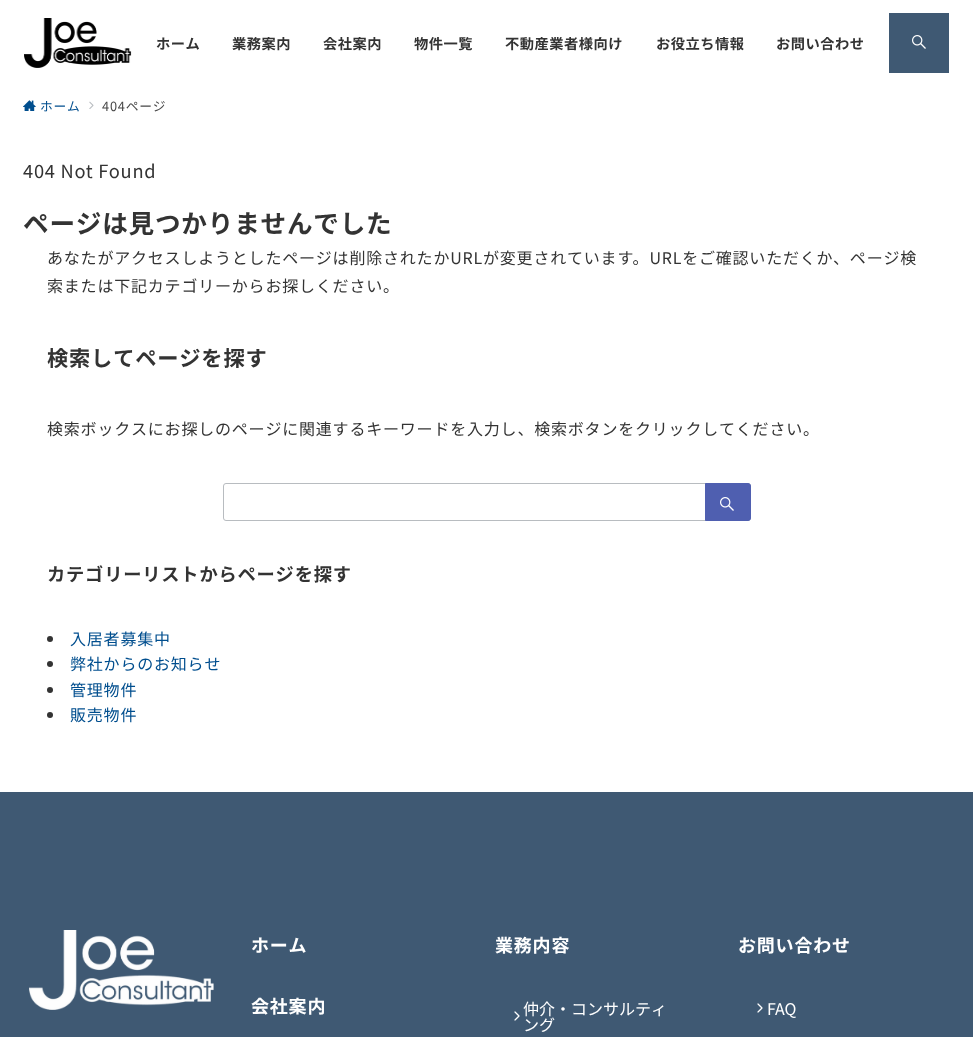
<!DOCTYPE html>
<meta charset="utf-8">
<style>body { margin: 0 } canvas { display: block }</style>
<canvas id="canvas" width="973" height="1037"></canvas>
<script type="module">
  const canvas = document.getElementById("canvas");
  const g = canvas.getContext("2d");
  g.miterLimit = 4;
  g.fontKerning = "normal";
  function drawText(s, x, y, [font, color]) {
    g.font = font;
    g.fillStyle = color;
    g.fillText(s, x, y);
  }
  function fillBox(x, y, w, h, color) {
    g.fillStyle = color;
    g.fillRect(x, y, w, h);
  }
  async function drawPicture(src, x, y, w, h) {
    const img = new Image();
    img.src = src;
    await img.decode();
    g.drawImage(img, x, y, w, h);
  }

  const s1 = ["bold 14.25px Noto Sans JP", "#333333"];
  const s2 = ["12.75px Noto Sans JP", "#004E8E"];
  const s3 = ["12.75px Noto Sans JP", "#484848"];
  const s4 = ["18.25px Noto Sans JP", "#333333"];
  const s5 = ["bold 25.6px Noto Sans JP", "#333333"];
  const s6 = ["16px Noto Sans JP", "#333333"];
  const s7 = ["bold 21.25px Noto Sans JP", "#333333"];
  const s8 = ["bold 18.25px Noto Sans JP", "#333333"];
  const s9 = ["16px Noto Sans JP", "#004E8E"];
  const s10 = ["bold 18px Noto Sans JP", "#FFFFFF"];
  const s11 = ["16px Noto Sans JP", "#FFFFFF"];

  fillBox(0, 0, 973, 1037, "#FFFFFF");
  await drawPicture("pic1.png", 24, 18, 108, 50);
  g.letterSpacing = "0.5px";
  drawText("ホーム", 156, 49, s1);
  drawText("業務案内", 232, 49, s1);
  drawText("会社案内", 323, 49, s1);
  drawText("物件一覧", 414, 49, s1);
  drawText("不動産業者様向け", 505, 49, s1);
  drawText("お役立ち情報", 656, 49, s1);
  drawText("お問い合わせ", 776, 49, s1);
  fillBox(889, 13, 60, 60, "#3F5973");
  await drawPicture("pic2.png", 912, 35, 14, 14);
  await drawPicture("pic3.png", 23, 100, 13, 11);
  g.letterSpacing = "0.8px";
  drawText("ホーム", 40, 111, s2);
  await drawPicture("pic4.png", 89, 101, 5, 8);
  drawText("404ページ", 102, 111, s3);
  g.letterSpacing = "0.75px";
  drawText("404 Not Found", 23, 178, s4);
  g.letterSpacing = "0.8px";
  drawText("ページは見つかりませんでした", 23, 233, s5);
  drawText("あなたがアクセスしようとしたページは削除されたかURLが変更されています。URLをご確認いただくか、ページ検", 47, 264, s6);
  drawText("索または下記カテゴリーからお探しください。", 47, 292, s6);
  drawText("検索してページを探す", 47, 366, s7);
  drawText("検索ボックスにお探しのページに関連するキーワードを入力し、検索ボタンをクリックしてください。", 47, 435, s6);
  g.beginPath();
  g.roundRect(223.5, 483.5, 527, 37, 2.5);
  g.strokeStyle = "#B8BCC0";
  g.stroke();
  g.fillStyle = "#4F5FB0";
  g.beginPath();
  g.roundRect(705.5, 483.5, 45, 37, [0, 2.5, 2.5, 0]);
  g.fill();
  g.strokeStyle = "#4F5FB0";
  g.stroke();
  await drawPicture("pic5.png", 720, 497, 14, 14);
  drawText("カテゴリーリストからページを探す", 47, 581, s8);
  g.beginPath();
  g.arc(50, 639, 3, 0, Math.PI * 2);
  g.fill();
  drawText("入居者募集中", 70, 645, s9);
  g.fillStyle = "#333333";
  g.beginPath();
  g.arc(50, 664, 3, 0, Math.PI * 2);
  g.fill();
  drawText("弊社からのお知らせ", 70, 670, s9);
  g.fillStyle = "#333333";
  g.beginPath();
  g.arc(50, 690, 3, 0, Math.PI * 2);
  g.fill();
  drawText("管理物件", 70, 696, s9);
  g.fillStyle = "#333333";
  g.beginPath();
  g.arc(50, 715, 3, 0, Math.PI * 2);
  g.fill();
  drawText("販売物件", 70, 721, s9);
  fillBox(0, 792, 973, 245, "#3F5973");
  await drawPicture("pic6.png", 29, 930, 185, 80);
  drawText("ホーム", 251, 952, s10);
  drawText("会社案内", 251, 1013, s10);
  drawText("業務内容", 495, 952, s10);
  await drawPicture("pic7.png", 514, 1011, 6, 10);
  g.letterSpacing = "0px";
  drawText("仲介・コンサルティ", 523, 1015, s11);
  drawText("ング", 523, 1031, s11);
  g.letterSpacing = "0.8px";
  drawText("お問い合わせ", 738, 952, s10);
  await drawPicture("pic7.png", 757, 1003, 6, 10);
  g.letterSpacing = "0px";
  drawText("FAQ", 767, 1015, s11);
</script>
